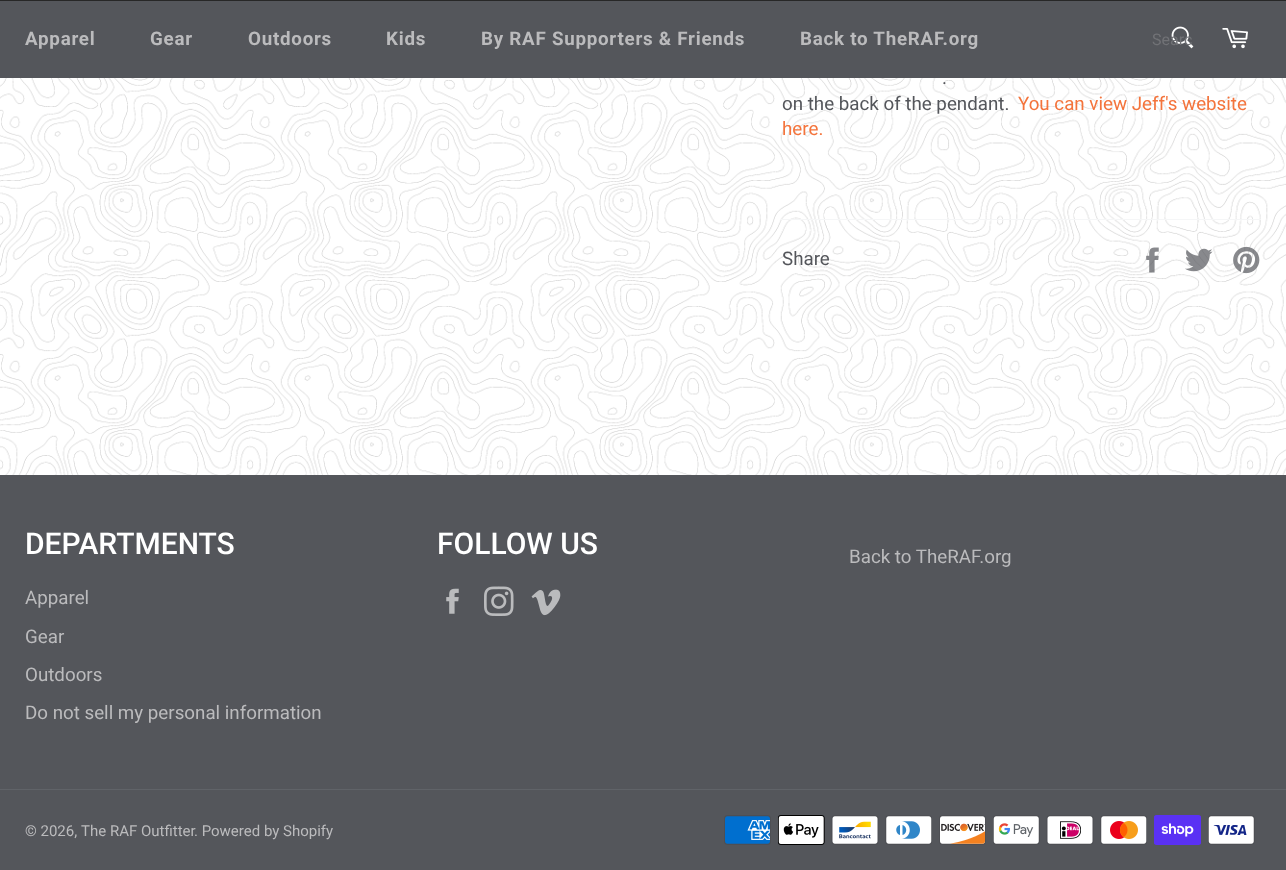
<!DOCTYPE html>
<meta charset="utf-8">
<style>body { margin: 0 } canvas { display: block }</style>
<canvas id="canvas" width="1286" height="870"></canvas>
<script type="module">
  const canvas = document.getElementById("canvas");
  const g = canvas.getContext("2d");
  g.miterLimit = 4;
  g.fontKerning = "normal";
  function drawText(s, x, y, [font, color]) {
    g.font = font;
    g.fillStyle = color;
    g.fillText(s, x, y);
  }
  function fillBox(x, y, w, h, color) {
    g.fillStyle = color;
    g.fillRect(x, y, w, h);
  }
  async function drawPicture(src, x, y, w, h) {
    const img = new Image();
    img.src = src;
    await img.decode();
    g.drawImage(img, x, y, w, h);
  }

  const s1 = ["bold 18.75px Roboto", "#BBBBBD"];
  const s2 = ["16px Roboto", "#717276"];
  const s3 = ["18.75px Roboto", "#54565B"];
  const s4 = ["18.75px Roboto", "#F4743C"];
  const s5 = ["500 30px Roboto", "#FFFFFF"];
  const s6 = ["18.75px Roboto", "#BBBBBD"];
  const s7 = ["15px Roboto", "#BBBBBD"];

  fillBox(0, 0, 1286, 870, "#FFFFFF");
  fillBox(0, 0, 1286, 1, "#272727");
  fillBox(0, 1, 1286, 77, "#54565B");
  g.letterSpacing = "0.75px";
  drawText("Apparel", 25, 45, s1);
  drawText("Gear", 150, 45, s1);
  drawText("Outdoors", 248, 45, s1);
  drawText("Kids", 386, 45, s1);
  drawText("By RAF Supporters & Friends", 481, 45, s1);
  drawText("Back to TheRAF.org", 800, 45, s1);
  await drawPicture("pic1.png", 1171, 26, 23, 23);
  g.letterSpacing = "0px";
  drawText("Searc", 1152, 45, s2);
  await drawPicture("pic2.png", 1222, 28, 26, 21);
  await drawPicture("pic3.png", 0, 78, 1286, 397);
  drawText(".", 942, 84, s3);
  drawText("on the back of the pendant.", 782, 110, s3);
  drawText("You can view Jeff's website", 1018, 110, s4);
  drawText("here.", 782, 135, s4);
  fillBox(781, 219, 480, 1, "#F5F6F7");
  drawText("Share", 782, 265, s3);
  await drawPicture("pic4.png", 1146, 247, 13, 26);
  await drawPicture("pic5.png", 1185, 248, 28, 24);
  await drawPicture("pic6.png", 1233, 246, 27, 28);
  fillBox(0, 475, 1286, 395, "#54565B");
  drawText("DEPARTMENTS", 25, 554, s5);
  drawText("Apparel", 25, 604, s6);
  drawText("Gear", 25, 643, s6);
  drawText("Outdoors", 25, 681, s6);
  drawText("Do not sell my personal information", 25, 719, s6);
  drawText("FOLLOW US", 437, 554, s5);
  await drawPicture("pic7.png", 446, 588, 13, 26);
  await drawPicture("pic8.png", 484, 586, 30, 30);
  await drawPicture("pic9.png", 531, 589, 30, 27);
  drawText("Back to TheRAF.org", 849, 563, s6);
  fillBox(0, 789, 1286, 1, "#606368");
  drawText("© 2026,", 25, 836, s7);
  drawText("The RAF Outfitter", 81, 836, s7);
  drawText(". Powered by Shopify", 194, 836, s7);
  await drawPicture("pic10.png", 724, 815, 47, 30);
  await drawPicture("pic11.png", 778, 815, 47, 30);
  await drawPicture("pic12.png", 831, 815, 48, 30);
  await drawPicture("pic13.png", 885, 815, 47, 30);
  await drawPicture("pic14.png", 939, 815, 47, 30);
  await drawPicture("pic15.png", 993, 815, 47, 30);
  await drawPicture("pic16.png", 1046, 815, 48, 30);
  await drawPicture("pic17.png", 1100, 815, 47, 30);
  await drawPicture("pic18.png", 1154, 815, 47, 30);
  await drawPicture("pic19.png", 1208, 815, 47, 30);
</script>
